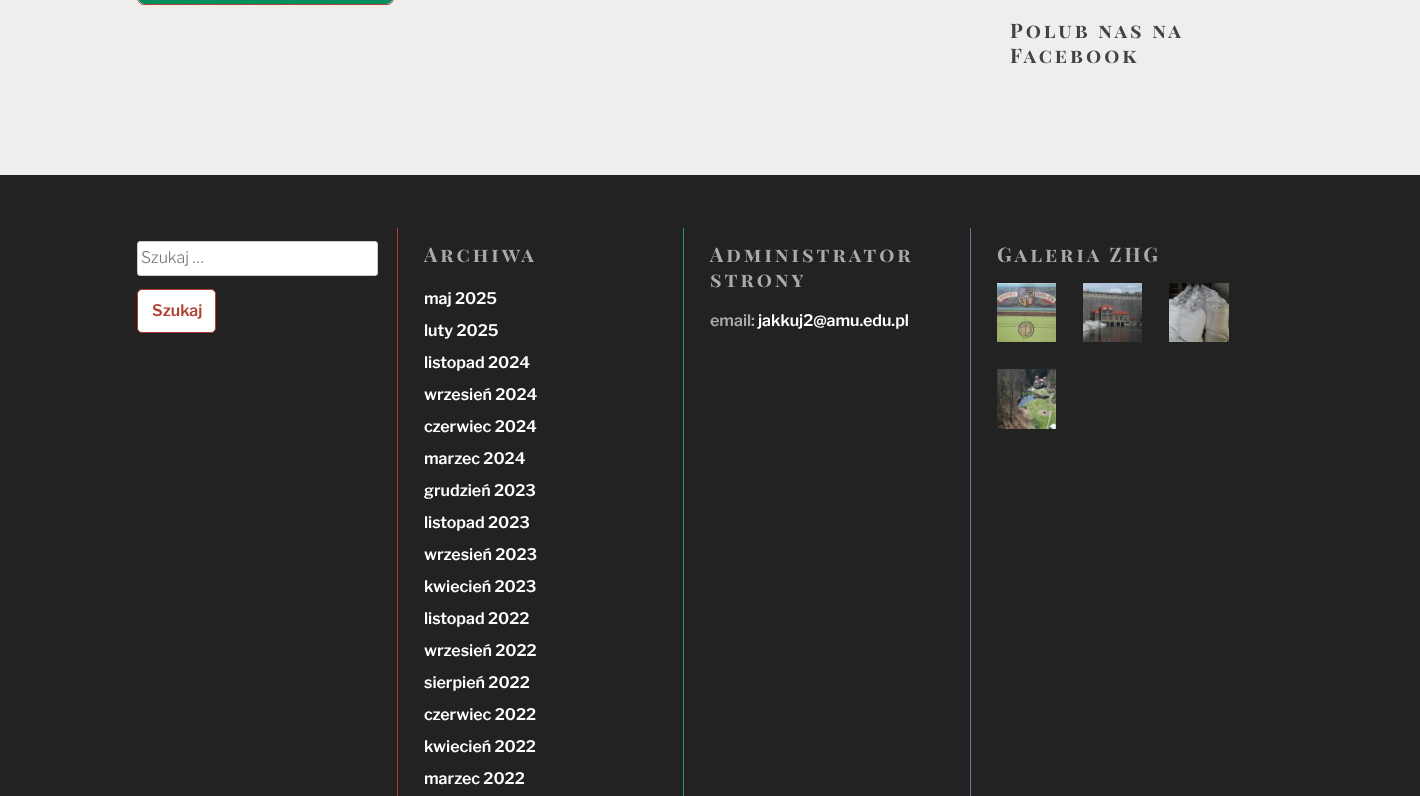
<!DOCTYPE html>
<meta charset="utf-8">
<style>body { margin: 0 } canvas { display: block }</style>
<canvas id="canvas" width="1420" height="796"></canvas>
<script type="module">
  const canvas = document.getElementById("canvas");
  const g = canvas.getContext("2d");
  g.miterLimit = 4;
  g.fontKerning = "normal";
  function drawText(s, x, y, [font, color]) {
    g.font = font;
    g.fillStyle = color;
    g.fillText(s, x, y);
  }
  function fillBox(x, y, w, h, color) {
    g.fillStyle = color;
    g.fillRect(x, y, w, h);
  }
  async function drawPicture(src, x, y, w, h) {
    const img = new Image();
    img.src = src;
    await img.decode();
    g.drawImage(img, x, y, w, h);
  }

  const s1 = ["bold 20px Playfair Display SC", "#434343"];
  const s2 = ["300 16px Libre Franklin", "#757575"];
  const s3 = ["600 16px Libre Franklin", "#B23F33"];
  const s4 = ["bold 20px Playfair Display SC", "#AAAAAA"];
  const s5 = ["600 16px Libre Franklin", "#FFFFFF"];
  const s6 = ["600 16px Libre Franklin", "#AAAAAA"];

  fillBox(0, 0, 1420, 796, "#F0EEEC");
  g.beginPath();
  g.roundRect(137.5, -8.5, 256, 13, 7.5);
  g.strokeStyle = "#B23F33";
  g.stroke();
  await drawPicture("pic1.png", 138, 0, 255, 4);
  g.letterSpacing = "3px";
  drawText("Polub nas na", 1010, 38, s1);
  drawText("Facebook", 1010, 63, s1);
  fillBox(0, 175, 1420, 621, "#222222");
  g.fillStyle = "#FFFFFF";
  g.beginPath();
  g.roundRect(137.5, 241.5, 240, 34, 2.5);
  g.fill();
  g.strokeStyle = "#CCCCCC";
  g.stroke();
  g.letterSpacing = "0px";
  drawText("Szukaj …", 141, 263, s2);
  g.fillStyle = "#FFFFFF";
  g.beginPath();
  g.roundRect(137.5, 289.5, 78, 43, 4.5);
  g.fill();
  g.strokeStyle = "#B23F33";
  g.stroke();
  drawText("Szukaj", 152, 316, s3);
  fillBox(397, 228, 1, 568, "#B23F33");
  g.letterSpacing = "3px";
  drawText("Archiwa", 424, 262, s4);
  g.letterSpacing = "0px";
  drawText("maj 2025", 424, 304, s5);
  drawText("luty 2025", 424, 336, s5);
  drawText("listopad 2024", 424, 368, s5);
  drawText("wrzesień 2024", 424, 400, s5);
  drawText("czerwiec 2024", 424, 432, s5);
  drawText("marzec 2024", 424, 464, s5);
  drawText("grudzień 2023", 424, 496, s5);
  drawText("listopad 2023", 424, 528, s5);
  drawText("wrzesień 2023", 424, 560, s5);
  drawText("kwiecień 2023", 424, 592, s5);
  drawText("listopad 2022", 424, 624, s5);
  drawText("wrzesień 2022", 424, 656, s5);
  drawText("sierpień 2022", 424, 688, s5);
  drawText("czerwiec 2022", 424, 720, s5);
  drawText("kwiecień 2022", 424, 752, s5);
  drawText("marzec 2022", 424, 784, s5);
  fillBox(683, 228, 1, 568, "#259275");
  g.letterSpacing = "3px";
  drawText("Administrator", 710, 262, s4);
  drawText("strony", 710, 287, s4);
  g.letterSpacing = "0px";
  drawText("email:", 710, 326, s6);
  drawText("jakkuj2@amu.edu.pl", 758, 326, s5);
  fillBox(970, 228, 1, 568, "#7C6C9E");
  g.letterSpacing = "3px";
  drawText("Galeria ZHG", 997, 262, s4);
  await drawPicture("pic2.png", 997, 283, 59, 59);
  await drawPicture("pic3.png", 1083, 283, 59, 59);
  await drawPicture("pic4.png", 1169, 283, 60, 59);
  await drawPicture("pic5.png", 997, 369, 59, 60);
</script>
